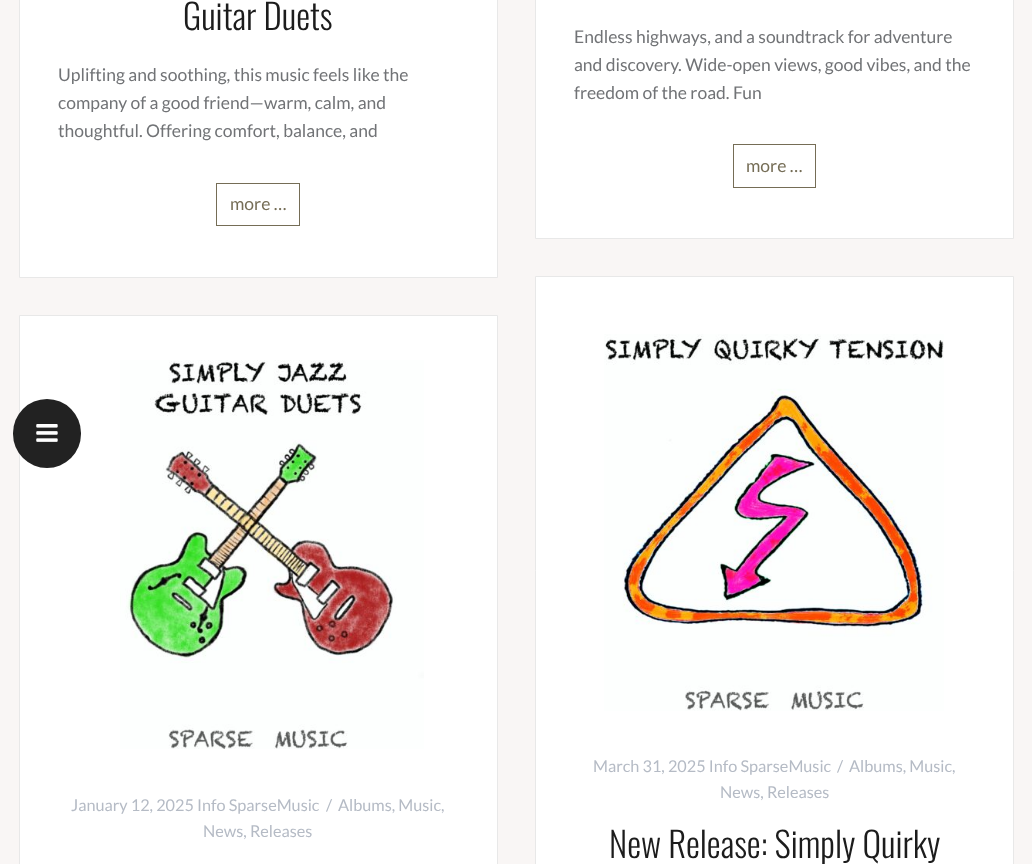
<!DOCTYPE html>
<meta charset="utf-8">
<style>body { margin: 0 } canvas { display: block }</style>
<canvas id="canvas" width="1032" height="864"></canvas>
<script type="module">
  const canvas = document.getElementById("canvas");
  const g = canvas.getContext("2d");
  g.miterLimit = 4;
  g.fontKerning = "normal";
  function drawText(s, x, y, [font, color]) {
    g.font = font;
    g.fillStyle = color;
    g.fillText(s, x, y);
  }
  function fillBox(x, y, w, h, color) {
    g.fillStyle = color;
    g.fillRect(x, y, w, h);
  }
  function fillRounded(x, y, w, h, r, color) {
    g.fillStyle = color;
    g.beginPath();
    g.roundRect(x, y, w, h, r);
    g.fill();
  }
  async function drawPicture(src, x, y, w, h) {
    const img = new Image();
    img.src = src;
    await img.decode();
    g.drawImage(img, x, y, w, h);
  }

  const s1 = ["300 35px Oswald", "#1C1C1C"];
  const s2 = ["17.5px Lato", "#717376"];
  const s3 = ["17.5px Lato", "#756D56"];
  const s4 = ["16.25px Lato", "#B5BBC5"];

  fillBox(0, 0, 1032, 864, "#F9F6F5");
  g.fillStyle = "#FFFFFF";
  g.beginPath();
  g.rect(19.5, 315.5, 478, 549);
  g.fill();
  g.strokeStyle = "#E8E8E8";
  g.stroke();
  fillRounded(13, 399, 68, 69, 34, "#222222");
  await drawPicture("pic1.png", 36, 424, 22, 18);
  g.fillStyle = "#FFFFFF";
  g.beginPath();
  g.rect(19.5, -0.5, 478, 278);
  g.fill();
  g.stroke();
  drawText("Guitar Duets", 183, 30, s1);
  drawText("Uplifting and soothing, this music feels like the", 58, 81, s2);
  drawText("company of a good friend—warm, calm, and", 58, 109, s2);
  drawText("thoughtful. Offering comfort, balance, and", 58, 137, s2);
  g.strokeStyle = "#756D56";
  g.strokeRect(216.5, 183.5, 83, 42);
  drawText("more …", 230, 210, s3);
  g.fillStyle = "#FFFFFF";
  g.beginPath();
  g.rect(535.5, -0.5, 478, 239);
  g.fill();
  g.strokeStyle = "#E8E8E8";
  g.stroke();
  drawText("Endless highways, and a soundtrack for adventure", 574, 43, s2);
  drawText("and discovery. Wide-open views, good vibes, and the", 574, 71, s2);
  drawText("freedom of the road. Fun", 574, 99, s2);
  g.strokeStyle = "#756D56";
  g.strokeRect(733.5, 144.5, 82, 43);
  drawText("more …", 746, 172, s3);
  await drawPicture("pic2.png", 120, 360, 304, 389);
  drawText("January 12, 2025 Info SparseMusic", 71, 811, s4);
  drawText("/", 326, 811, s4);
  drawText("Albums, Music,", 338, 811, s4);
  drawText("News, Releases", 203, 837, s4);
  g.fillStyle = "#FFFFFF";
  g.beginPath();
  g.rect(535.5, 276.5, 478, 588);
  g.fill();
  g.strokeStyle = "#E8E8E8";
  g.stroke();
  await drawPicture("pic3.png", 604, 334, 340, 377);
  drawText("March 31, 2025 Info SparseMusic", 593, 772, s4);
  drawText("/", 837, 772, s4);
  drawText("Albums, Music,", 849, 772, s4);
  drawText("News, Releases", 720, 798, s4);
  drawText("New Release: Simply Quirky", 609, 858, s1);
</script>
